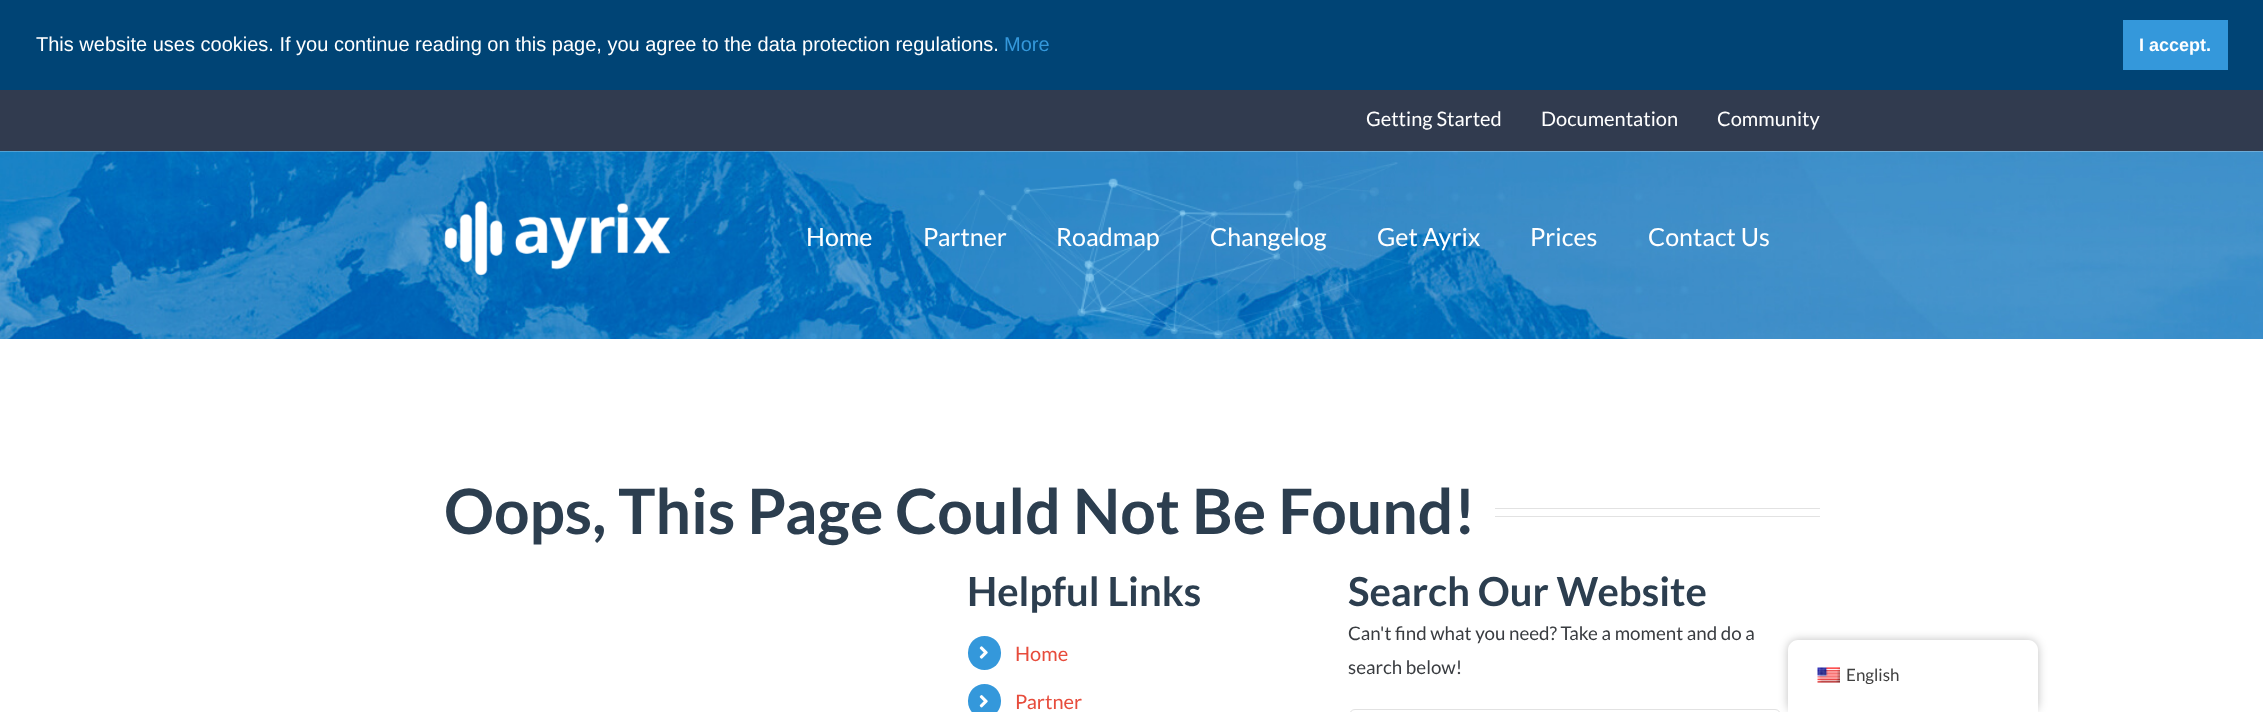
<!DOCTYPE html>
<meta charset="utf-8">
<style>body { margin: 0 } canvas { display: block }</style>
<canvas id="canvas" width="2263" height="712"></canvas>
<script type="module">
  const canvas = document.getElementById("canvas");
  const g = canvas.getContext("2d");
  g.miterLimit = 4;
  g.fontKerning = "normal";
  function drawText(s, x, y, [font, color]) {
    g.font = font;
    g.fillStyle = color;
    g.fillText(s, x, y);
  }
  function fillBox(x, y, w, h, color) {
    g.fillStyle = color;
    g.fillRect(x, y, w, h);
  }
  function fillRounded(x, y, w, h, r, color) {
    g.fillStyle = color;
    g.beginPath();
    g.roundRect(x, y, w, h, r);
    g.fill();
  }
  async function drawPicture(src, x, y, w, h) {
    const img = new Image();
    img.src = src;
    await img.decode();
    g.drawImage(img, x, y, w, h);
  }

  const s1 = ["20px Liberation Sans", "#FFFFFF"];
  const s2 = ["20px Liberation Sans", "#3498DB"];
  const s3 = ["bold 18px Liberation Sans", "#FFFFFF"];
  const s4 = ["20px Lato", "#FFFFFF"];
  const s5 = ["25px Lato", "#FFFFFF"];
  const s6 = ["bold 62.5px Lato", "#2C3E4F"];
  const s7 = ["bold 40px Lato", "#2C3E4F"];
  const s8 = ["20px Lato", "#E74C3C"];
  const s9 = ["18.75px Lato", "#393C40"];
  const s10 = ["17px Lato", "#404040"];

  fillBox(0, 0, 2263, 712, "#004475");
  drawText("This website uses cookies. If you continue reading on this page, you agree to the data protection regulations.", 36, 51, s1);
  drawText("More", 1004, 51, s2);
  fillBox(2123, 20, 105, 50, "#3498DB");
  drawText("I accept.", 2139, 51, s3);
  fillBox(0, 151, 2263, 561, "#FFFFFF");
  fillBox(0, 90, 2263, 61, "#313B4F");
  drawText("Getting Started", 1366, 126, s4);
  drawText("Documentation", 1541, 126, s4);
  drawText("Community", 1717, 126, s4);
  await drawPicture("pic1.png", 0, 151, 2263, 188);
  await drawPicture("pic2.png", 880, 152, 579, 188);
  await drawPicture("pic3.png", 444, 200, 226, 75);
  drawText("Home", 806, 246, s5);
  drawText("Partner", 923, 246, s5);
  drawText("Roadmap", 1056, 246, s5);
  drawText("Changelog", 1210, 246, s5);
  drawText("Get Ayrix", 1377, 246, s5);
  drawText("Prices", 1530, 246, s5);
  drawText("Contact Us", 1648, 246, s5);
  drawText("Oops, This Page Could Not Be Found!", 444, 534, s6);
  fillBox(1495, 508, 325, 1, "#E2E2E2");
  fillBox(1495, 516, 325, 1, "#E2E2E2");
  drawText("Helpful Links", 967, 606, s7);
  fillRounded(968, 636, 33, 34, 16.5, "#3498DB");
  await drawPicture("pic4.png", 979, 646, 9, 13);
  drawText("Home", 1015, 661, s8);
  fillRounded(968, 684, 33, 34, 16.5, "#3498DB");
  await drawPicture("pic5.png", 979, 695, 9, 13);
  drawText("Partner", 1015, 709, s8);
  drawText("Search Our Website", 1348, 606, s7);
  drawText("Can't find what you need? Take a moment and do a", 1348, 640, s9);
  drawText("search below!", 1348, 674, s9);
  g.beginPath();
  g.roundRect(1349.5, 709.5, 431, 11, 7.5);
  g.strokeStyle = "#E2E2E2";
  g.stroke();
  g.fillStyle = "rgba(0, 0, 0, 0.25)";
  g.filter = "blur(5px)";
  g.beginPath();
  g.roundRect(1788, 640, 250, 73, 10);
  g.fill();
  g.filter = "none";
  g.fillStyle = "#FFFFFF";
  g.beginPath();
  g.moveTo(1798, 640);
  g.lineTo(2028, 640);
  g.bezierCurveTo(2033.5, 640, 2038, 644.5, 2038, 650);
  g.lineTo(2038, 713);
  g.lineTo(1788, 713);
  g.lineTo(1788, 650);
  g.bezierCurveTo(1788, 644.5, 1792.5, 640, 1798, 640);
  g.closePath();
  g.fill();
  await drawPicture("pic6.png", 1817, 667, 23, 16);
  drawText("English", 1846, 681, s10);
</script>
